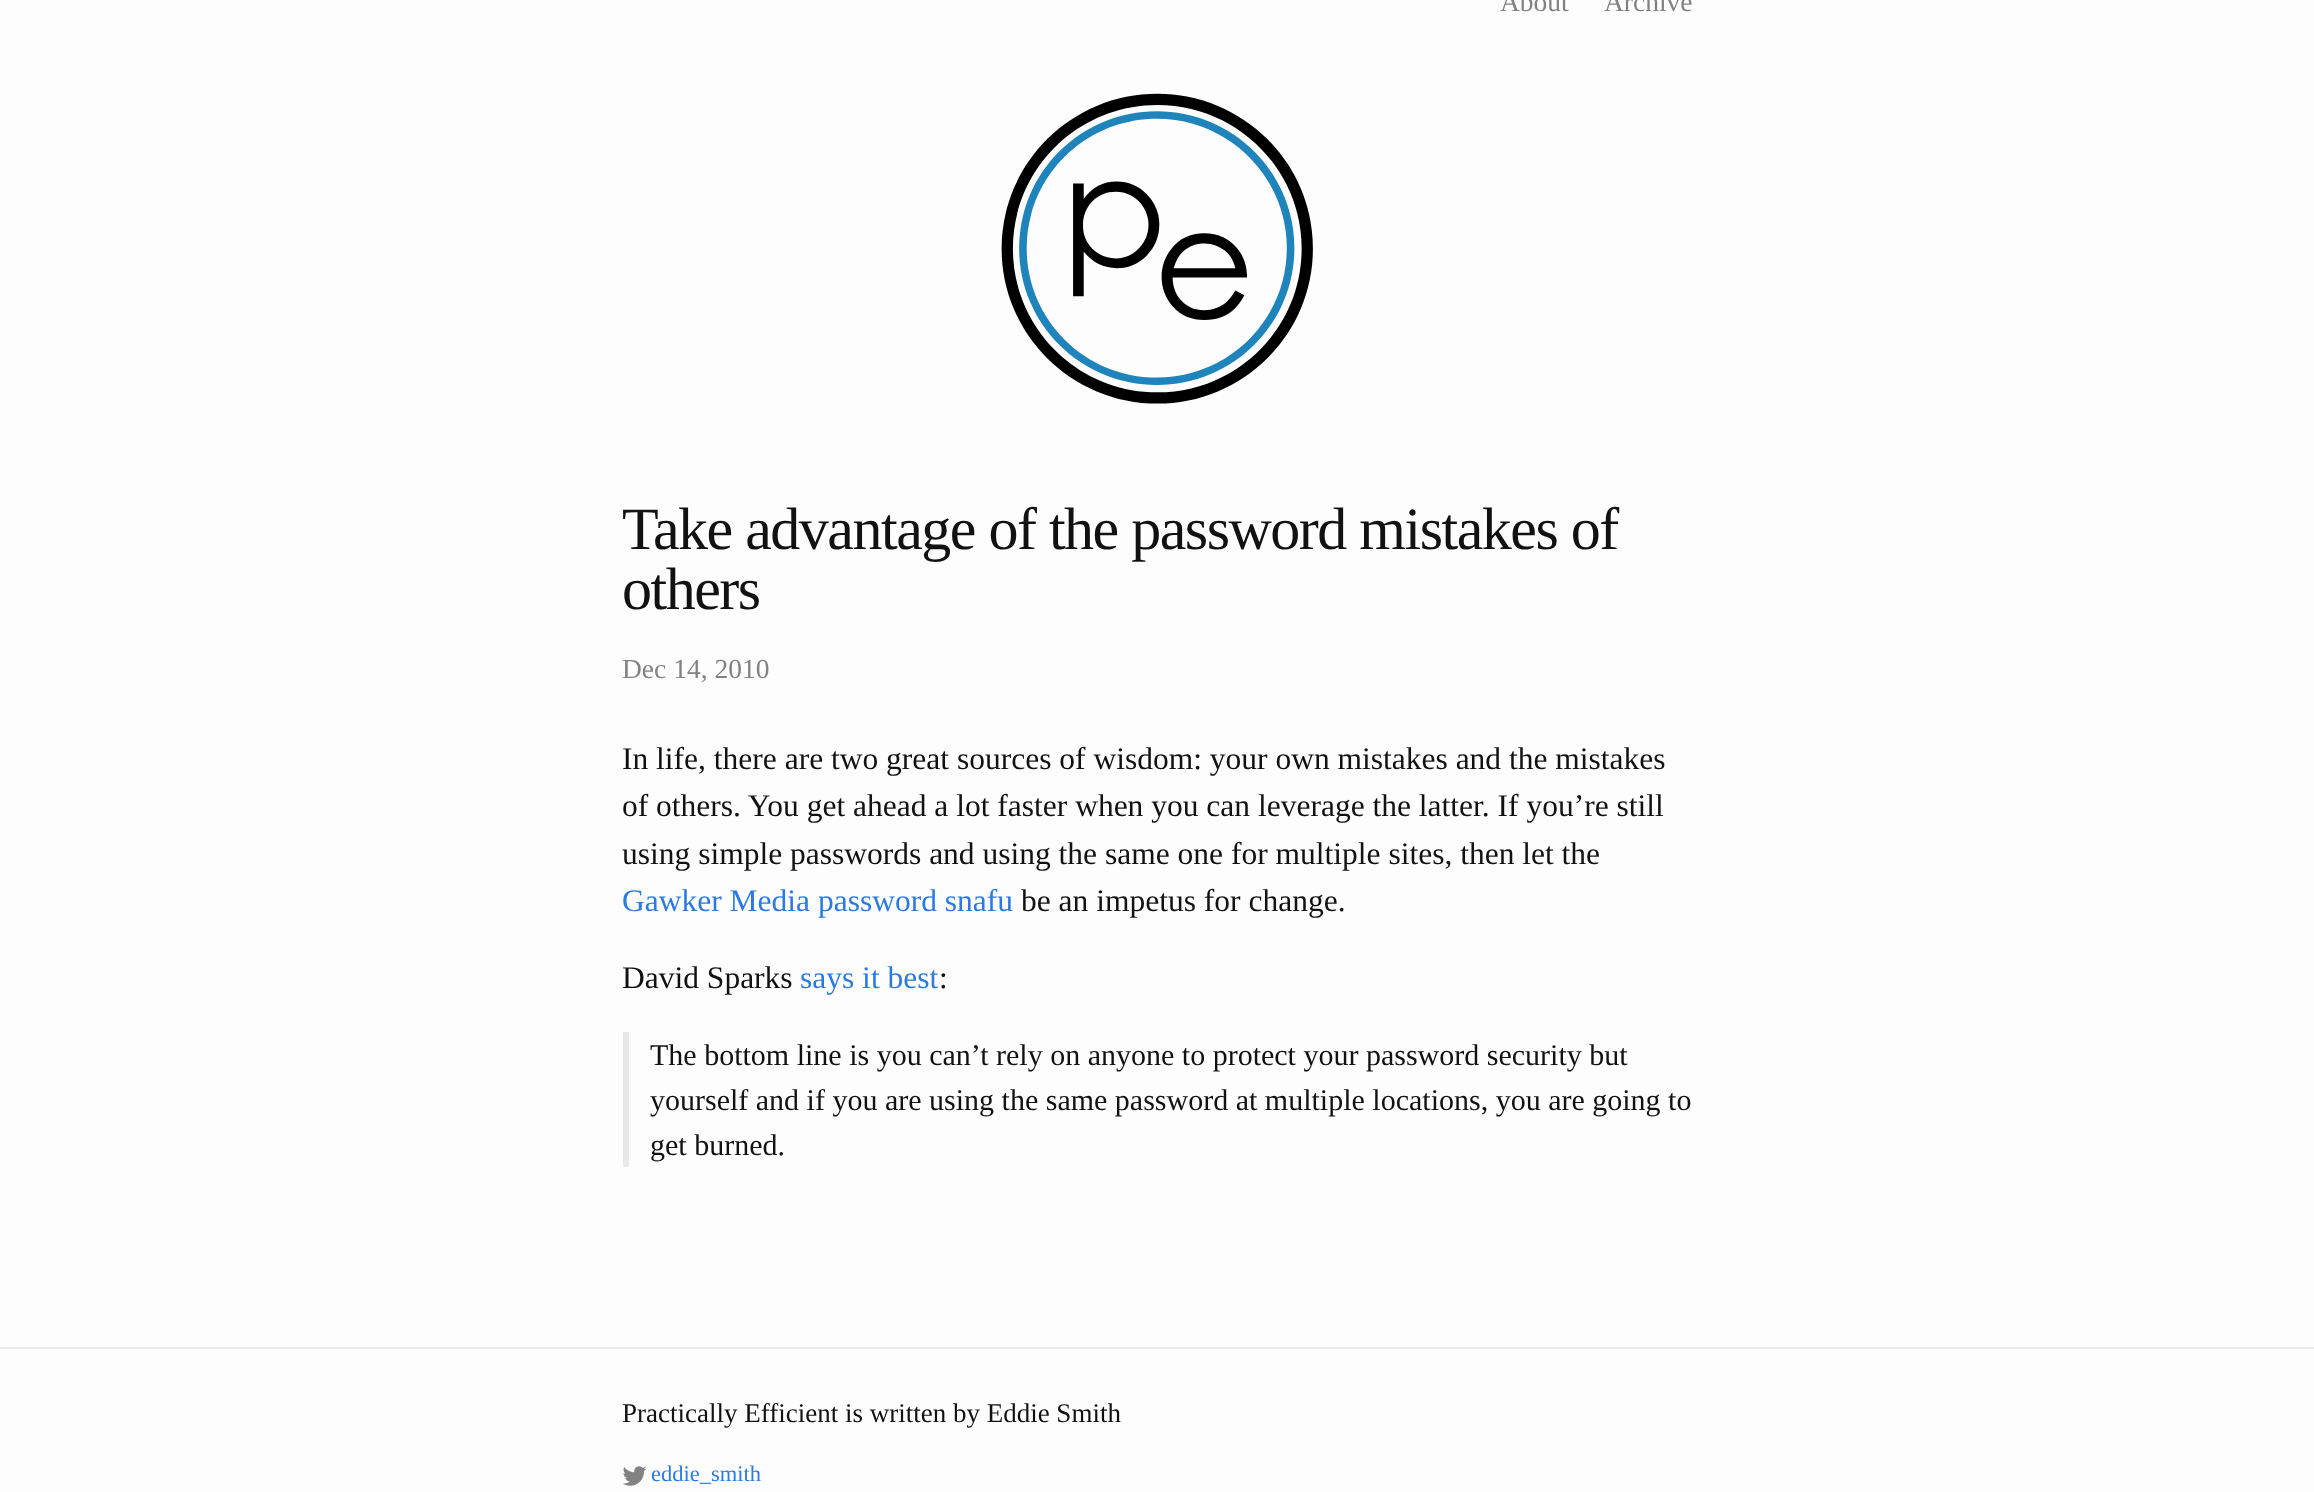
<!DOCTYPE html>
<meta charset="utf-8">
<style>body { margin: 0 } canvas { display: block }</style>
<canvas id="canvas" width="2314" height="1492"></canvas>
<script type="module">
  const canvas = document.getElementById("canvas");
  const g = canvas.getContext("2d");
  g.miterLimit = 4;
  g.fontKerning = "normal";
  function drawText(s, x, y, [font, color]) {
    g.font = font;
    g.fillStyle = color;
    g.fillText(s, x, y);
  }
  function fillBox(x, y, w, h, color) {
    g.fillStyle = color;
    g.fillRect(x, y, w, h);
  }
  async function drawPicture(src, x, y, w, h) {
    const img = new Image();
    img.src = src;
    await img.decode();
    g.drawImage(img, x, y, w, h);
  }

  const s1 = ["27.5px Liberation Serif", "#828282"];
  const s2 = ["60px Liberation Serif", "#111111"];
  const s3 = ["31.5px Liberation Serif", "#111111"];
  const s4 = ["31.5px Liberation Serif", "#2A7AE2"];
  const s5 = ["30px Liberation Serif", "#111111"];
  const s6 = ["27px Liberation Serif", "#111111"];
  const s7 = ["22.5px Liberation Serif", "#2A7AE2"];

  fillBox(0, 0, 2314, 1492, "#FDFDFD");
  drawText("About", 1500, 11, s1);
  drawText("Archive", 1604, 11, s1);
  await drawPicture("pic1.png", 1001, 93, 312, 311);
  g.letterSpacing = "-1.5px";
  drawText("Take advantage of the password mistakes of", 622, 549, s2);
  drawText("others", 622, 609, s2);
  g.letterSpacing = "0px";
  drawText("Dec 14, 2010", 622, 678, s1);
  drawText("In life, there are two great sources of wisdom: your own mistakes and the mistakes", 622, 769, s3);
  drawText("of others. You get ahead a lot faster when you can leverage the latter. If you’re still", 622, 816, s3);
  drawText("using simple passwords and using the same one for multiple sites, then let the", 622, 864, s3);
  drawText("Gawker Media password snafu", 622, 911, s4);
  drawText("be an impetus for change.", 1021, 911, s3);
  drawText("David Sparks", 622, 988, s3);
  drawText("says it best", 800, 988, s4);
  drawText(":", 939, 988, s3);
  fillBox(623, 1032, 6, 135, "#E8E8E8");
  drawText("The bottom line is you can’t rely on anyone to protect your password security but", 650, 1065, s5);
  drawText("yourself and if you are using the same password at multiple locations, you are going to", 650, 1110, s5);
  drawText("get burned.", 650, 1155, s5);
  fillBox(0, 1347, 2314, 2, "#E8E8E8");
  drawText("Practically Efficient is written by Eddie Smith", 622, 1422, s6);
  await drawPicture("pic2.png", 623, 1466, 24, 20);
  drawText("eddie_smith", 651, 1481, s7);
</script>
